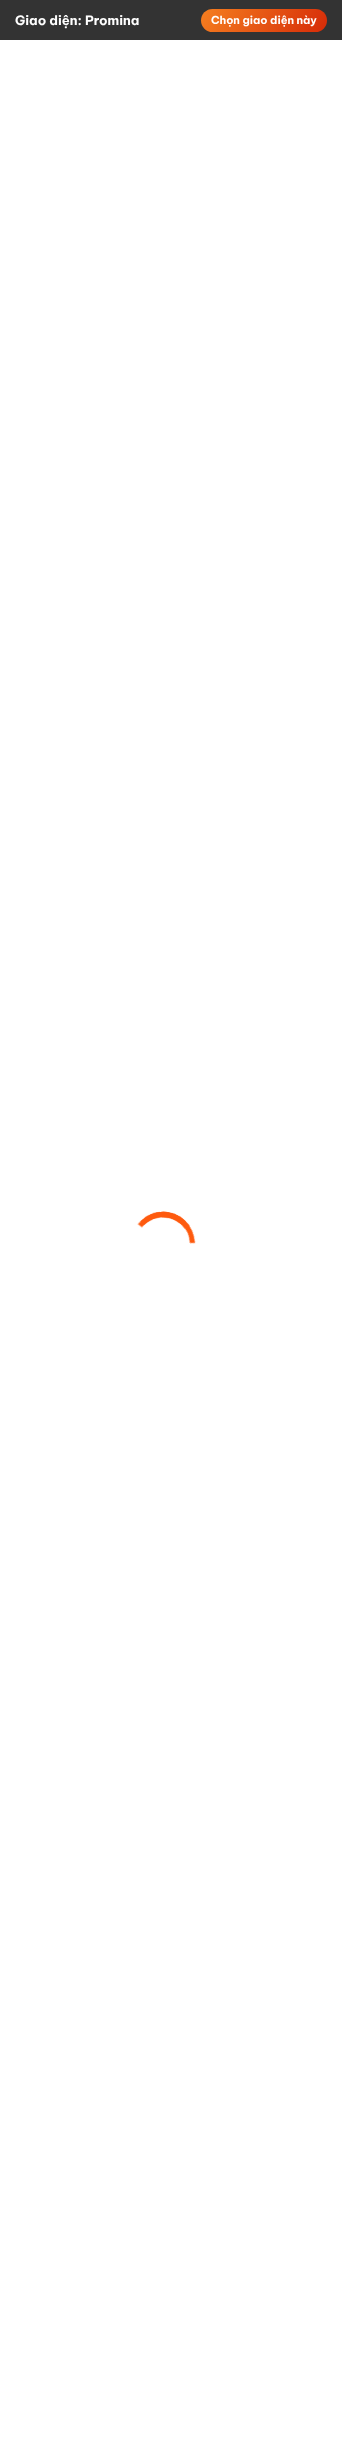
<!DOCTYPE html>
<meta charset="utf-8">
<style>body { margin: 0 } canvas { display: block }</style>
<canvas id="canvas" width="342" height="2463"></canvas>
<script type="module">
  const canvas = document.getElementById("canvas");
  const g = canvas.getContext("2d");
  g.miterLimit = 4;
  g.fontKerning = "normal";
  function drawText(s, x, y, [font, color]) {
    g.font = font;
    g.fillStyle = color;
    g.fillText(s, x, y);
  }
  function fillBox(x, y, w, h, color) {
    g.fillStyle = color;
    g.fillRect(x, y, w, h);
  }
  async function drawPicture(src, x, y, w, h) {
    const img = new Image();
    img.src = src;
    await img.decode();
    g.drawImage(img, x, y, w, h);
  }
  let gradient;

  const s1 = ["bold 13px Be Vietnam Pro", "#FFFFFF"];
  const s2 = ["bold 11px Be Vietnam Pro", "#FFFFFF"];

  fillBox(0, 0, 342, 2463, "#FFFFFF");
  fillBox(0, 0, 342, 40, "#333333");
  drawText("Giao diện: Promina", 15, 25, s1);
  gradient = g.createLinearGradient(212, -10, 316, 51);
  gradient.addColorStop(0, "#F57F20");
  gradient.addColorStop(1, "#D62B08");
  g.fillStyle = gradient;
  g.beginPath();
  g.roundRect(201, 9, 126, 23, 11.5);
  g.fill();
  drawText("Chọn giao diện này", 211, 24, s2);
  await drawPicture("pic1.png", 137, 1211, 59, 33);
</script>
